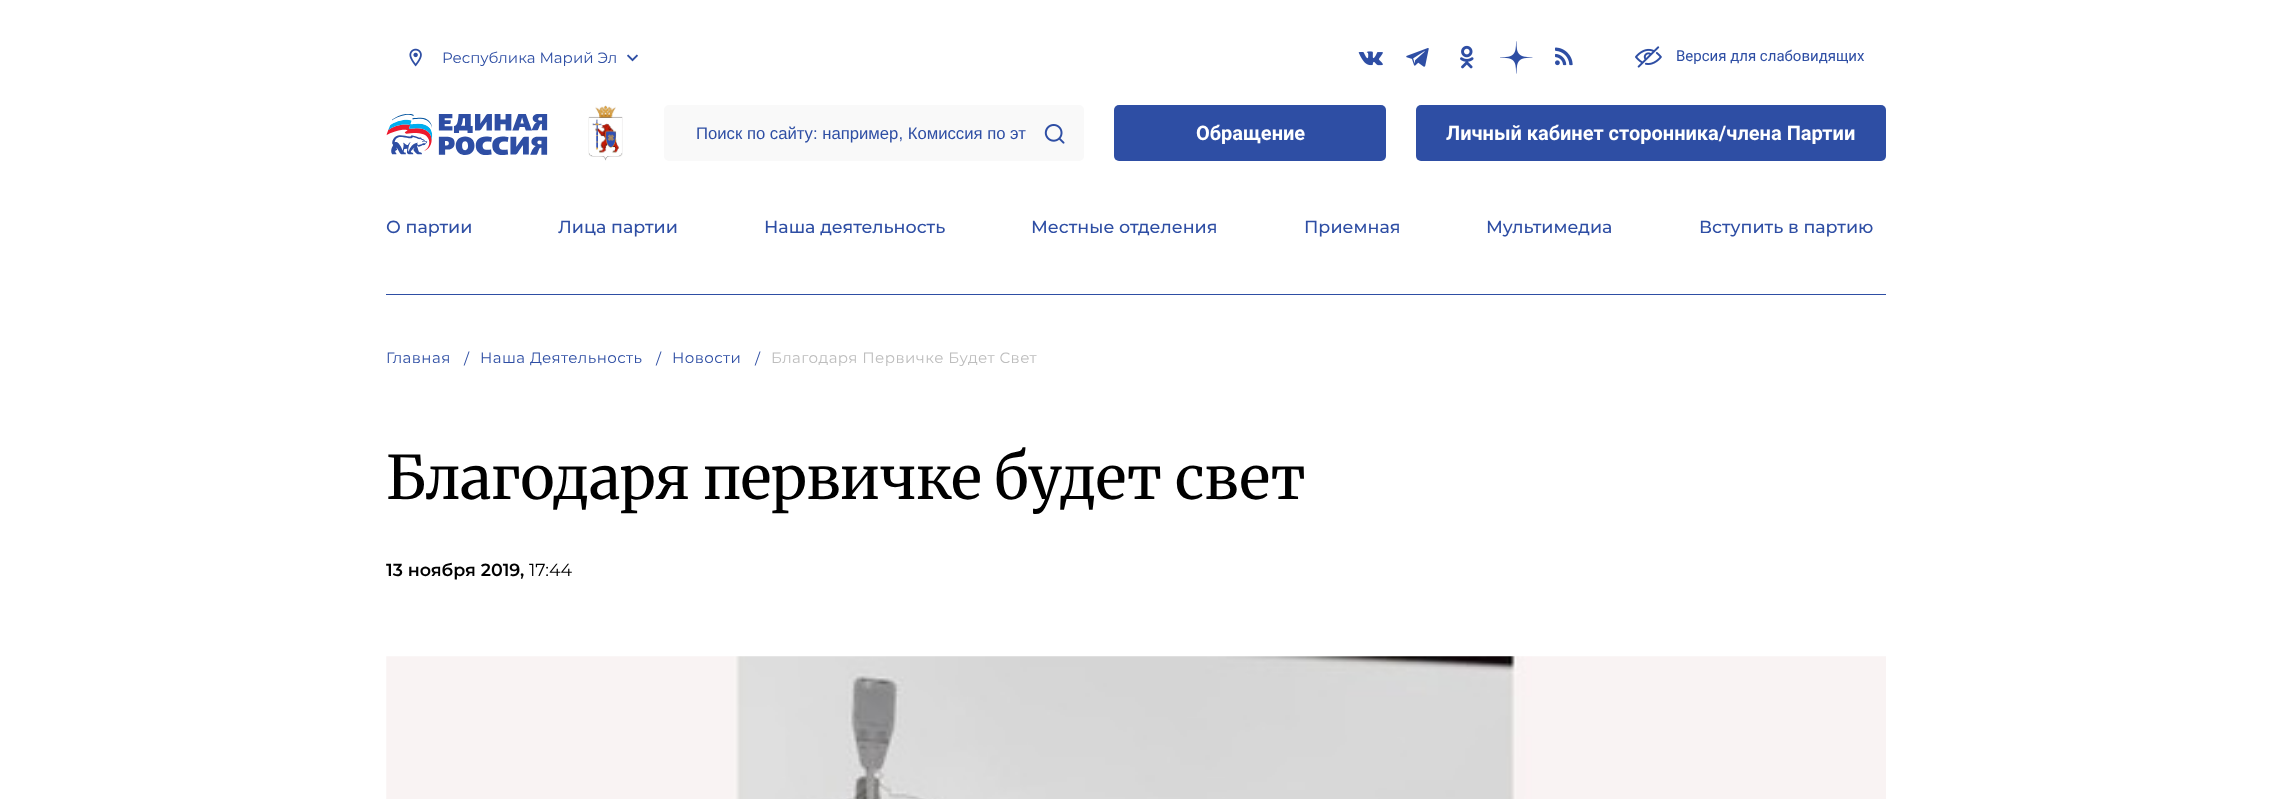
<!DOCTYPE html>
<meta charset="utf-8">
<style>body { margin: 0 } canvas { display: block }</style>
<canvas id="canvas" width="2271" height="799"></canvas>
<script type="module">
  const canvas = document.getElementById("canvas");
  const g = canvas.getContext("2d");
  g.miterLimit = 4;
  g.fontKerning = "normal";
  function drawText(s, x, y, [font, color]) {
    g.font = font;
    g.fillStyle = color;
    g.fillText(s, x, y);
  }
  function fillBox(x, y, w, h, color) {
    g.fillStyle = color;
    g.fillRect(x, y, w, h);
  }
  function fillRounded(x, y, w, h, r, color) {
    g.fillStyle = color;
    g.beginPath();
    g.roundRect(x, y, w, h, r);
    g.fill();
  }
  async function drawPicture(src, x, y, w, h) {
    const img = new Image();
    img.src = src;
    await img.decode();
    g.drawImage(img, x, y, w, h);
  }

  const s1 = ["15px Montserrat", "#2E4EA4"];
  const s2 = ["15px Roboto", "#2E4EA4"];
  const s3 = ["16.7px Liberation Sans", "#2E4EA4"];
  const s4 = ["bold 20px Roboto", "#FFFFFF"];
  const s5 = ["500 17.5px Montserrat", "#2E4EA4"];
  const s6 = ["15px Montserrat", "#BDBDBD"];
  const s7 = ["60px Merriweather", "#000000"];
  const s8 = ["600 17.5px Montserrat", "#000000"];
  const s9 = ["17.5px Montserrat", "#000000"];

  fillBox(0, 0, 2271, 799, "#FFFFFF");
  await drawPicture("pic1.png", 409, 48, 13, 19);
  drawText("Республика Марий Эл", 442, 63, s1);
  await drawPicture("pic2.png", 627, 54, 11, 8);
  await drawPicture("pic3.png", 1358, 51, 25, 15);
  await drawPicture("pic4.png", 1406, 48, 23, 19);
  await drawPicture("pic5.png", 1460, 45, 14, 24);
  await drawPicture("pic6.png", 1500, 41, 33, 33);
  await drawPicture("pic7.png", 1555, 47, 18, 19);
  await drawPicture("pic8.png", 1635, 46, 27, 22);
  drawText("Версия для слабовидящих", 1676, 61, s2);
  await drawPicture("pic9.png", 386, 114, 162, 41);
  await drawPicture("pic10.png", 588, 105, 35, 56);
  fillRounded(664, 105, 420, 56, 5, "#F9F9F9");
  drawText("Поиск по сайту: например, Комиссия по эт", 696, 139, s3);
  await drawPicture("pic11.png", 1044, 124, 21, 20);
  fillRounded(1114, 105, 272, 56, 5, "#2E4EA4");
  drawText("Обращение", 1196, 140, s4);
  fillRounded(1416, 105, 470, 56, 5, "#2E4EA4");
  drawText("Личный кабинет сторонника/члена Партии", 1446, 140, s4);
  fillBox(386, 294, 1500, 1, "#2E4EA4");
  drawText("О партии", 386, 233, s5);
  drawText("Лица партии", 558, 233, s5);
  drawText("Наша деятельность", 764, 233, s5);
  drawText("Местные отделения", 1031, 233, s5);
  drawText("Приемная", 1304, 233, s5);
  drawText("Мультимедиа", 1486, 233, s5);
  drawText("Вступить в партию", 1699, 233, s5);
  g.letterSpacing = "0.45px";
  drawText("Главная", 386, 363, s1);
  drawText("/", 464, 364, s1);
  drawText("Наша Деятельность", 480, 363, s1);
  drawText("/", 656, 364, s1);
  drawText("Новости", 672, 363, s1);
  drawText("/", 755, 364, s1);
  drawText("Благодаря Первичке Будет Свет", 771, 363, s6);
  g.letterSpacing = "0px";
  drawText("Благодаря первичке будет свет", 386, 499, s7);
  drawText("13 ноября 2019,", 386, 576, s8);
  drawText("17:44", 529, 576, s9);
  await drawPicture("pic12.png", 386, 656, 1500, 143);
</script>
